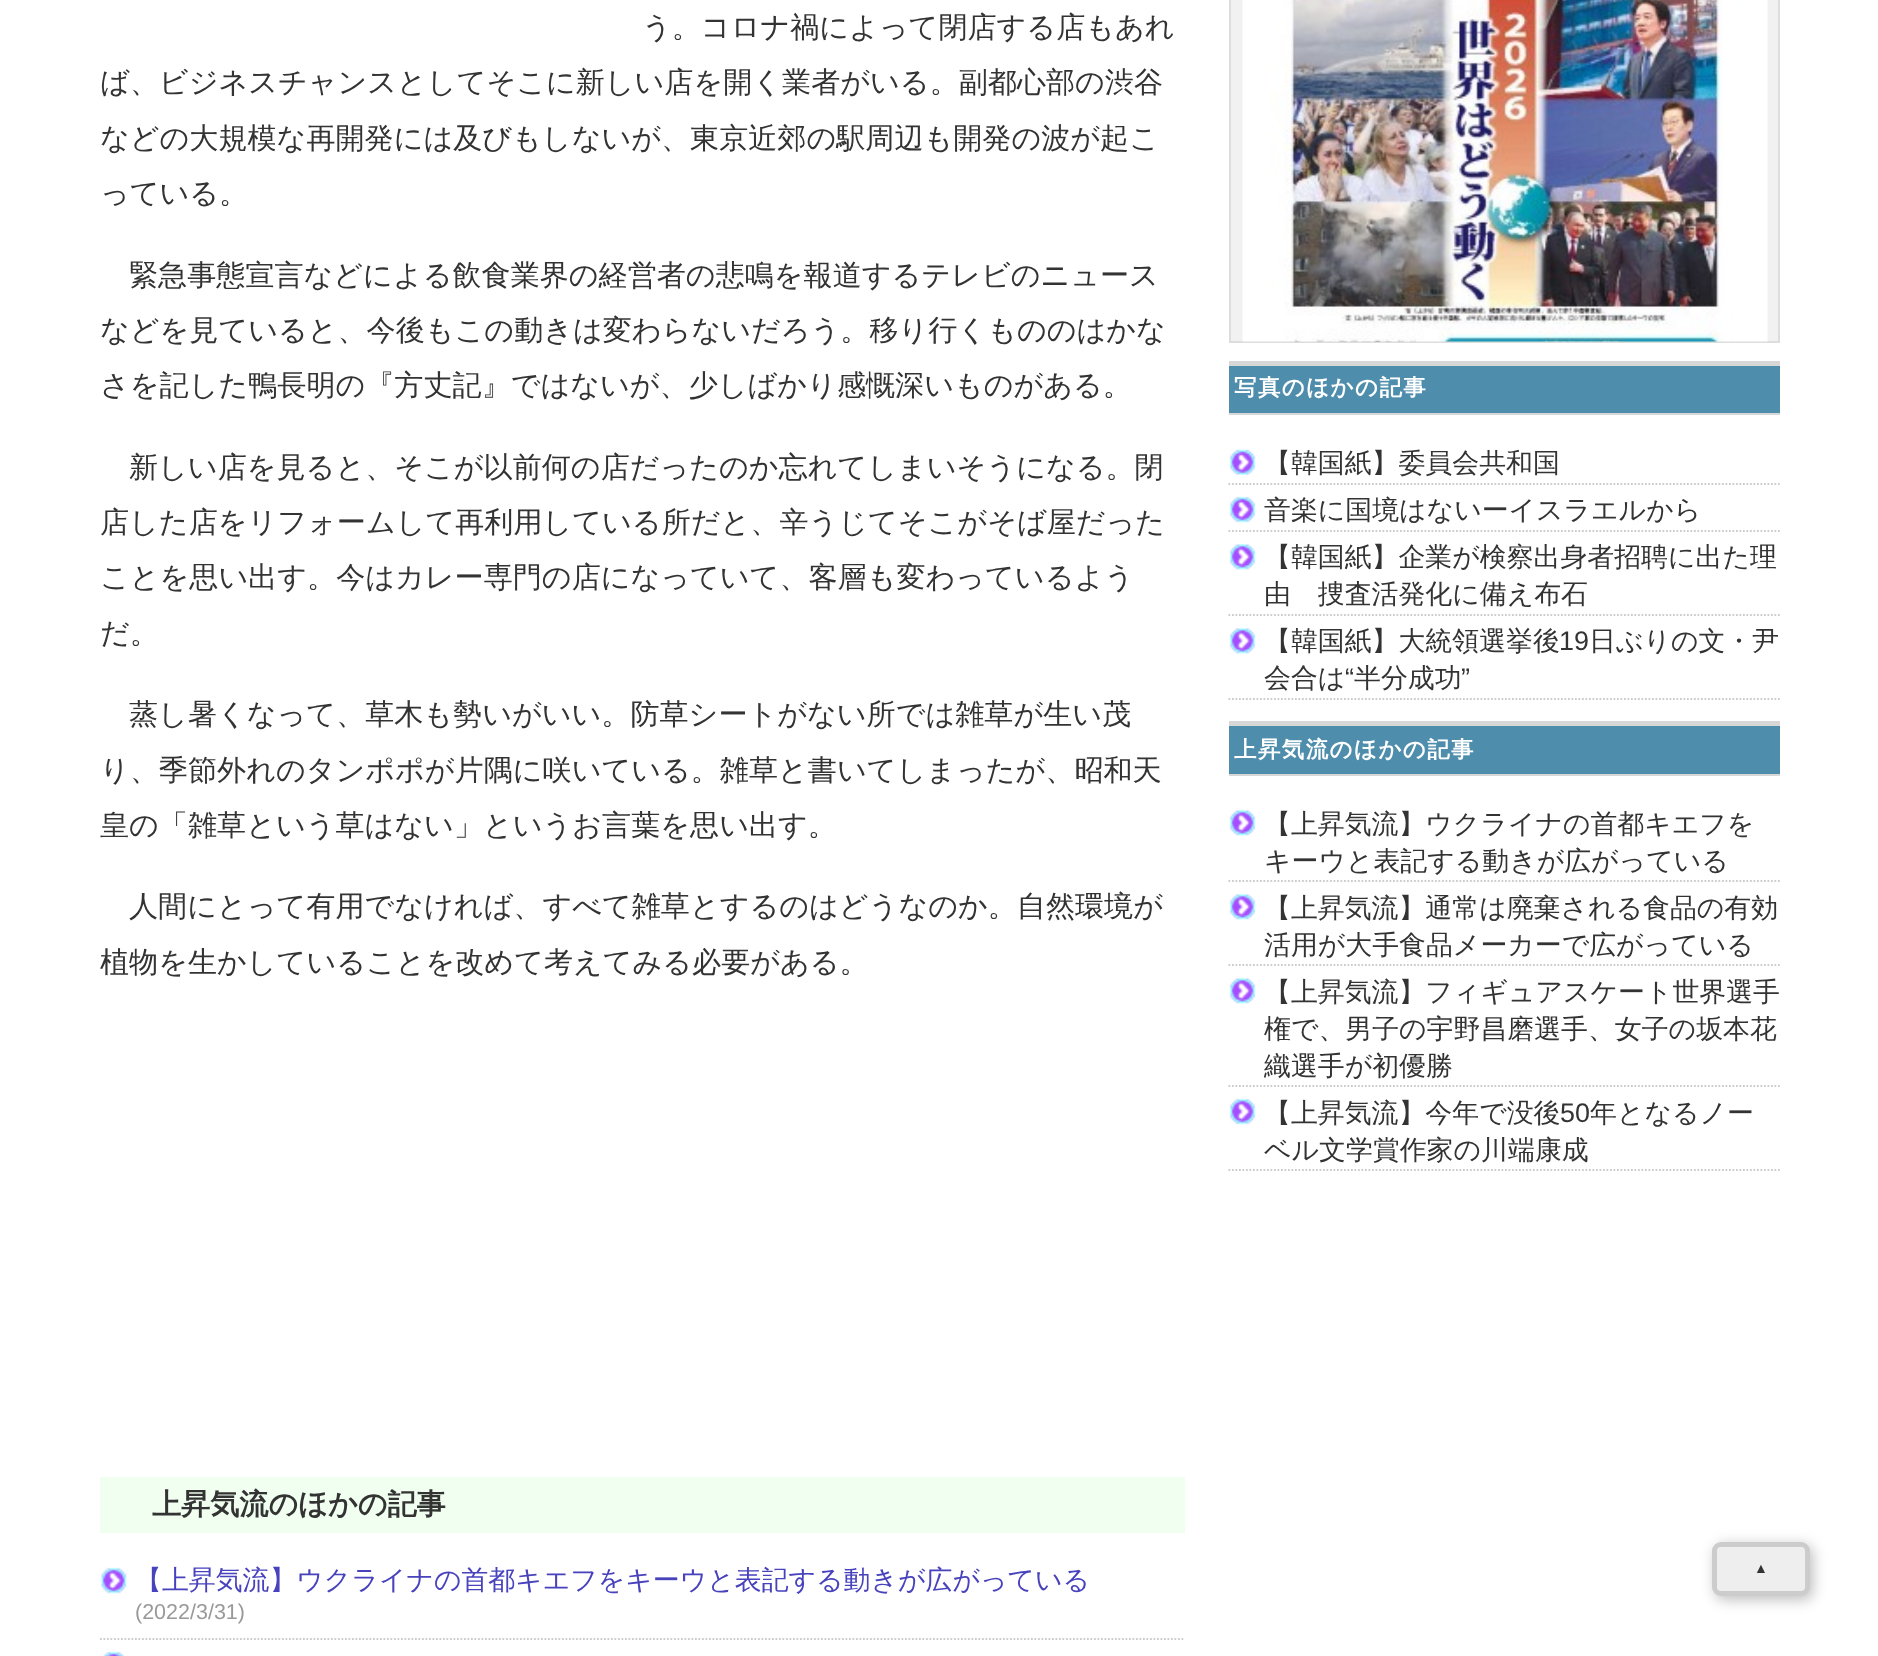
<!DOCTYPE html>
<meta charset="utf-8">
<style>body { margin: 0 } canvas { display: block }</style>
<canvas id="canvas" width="1878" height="1656"></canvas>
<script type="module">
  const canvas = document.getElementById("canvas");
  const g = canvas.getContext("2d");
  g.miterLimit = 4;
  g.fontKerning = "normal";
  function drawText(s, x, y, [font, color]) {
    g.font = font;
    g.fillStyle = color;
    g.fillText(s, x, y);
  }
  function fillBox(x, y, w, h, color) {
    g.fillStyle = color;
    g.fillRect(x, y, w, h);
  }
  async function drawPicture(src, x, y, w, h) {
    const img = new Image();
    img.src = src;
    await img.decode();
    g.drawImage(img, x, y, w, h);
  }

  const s1 = ["500 29.1px WenQuanYi Zen Hei", "#333333"];
  const s2 = ["bold 29.1px WenQuanYi Zen Hei", "#333333"];
  const s3 = ["500 26.9px WenQuanYi Zen Hei", "#4842BD"];
  const s4 = ["21.5px Liberation Sans", "#999999"];
  const s5 = ["bold 22.4px WenQuanYi Zen Hei", "#FFFFFF"];
  const s6 = ["500 26.9px WenQuanYi Zen Hei", "#333333"];
  const s7 = ["26.9px Liberation Sans", "#333333"];
  const s8 = ["14px Liberation Sans", "#333333"];

  fillBox(0, 0, 1878, 1656, "#FFFFFF");
  drawText("う。コロナ禍によって閉店する店もあれ", 642, 37, s1);
  drawText("ば、ビジネスチャンスとしてそこに新しい店を開く業者がいる。副都心部の渋谷", 100, 92, s1);
  drawText("などの大規模な再開発には及びもしないが、東京近郊の駅周辺も開発の波が起こ", 100, 148, s1);
  drawText("っている。", 100, 203, s1);
  drawText("緊急事態宣言などによる飲食業界の経営者の悲鳴を報道するテレビのニュース", 129, 285, s1);
  drawText("などを見ていると、今後もこの動きは変わらないだろう。移り行くもののはかな", 100, 340, s1);
  drawText("さを記した鴨長明の『方丈記』ではないが、少しばかり感慨深いものがある。", 100, 395, s1);
  drawText("新しい店を見ると、そこが以前何の店だったのか忘れてしまいそうになる。閉", 129, 477, s1);
  drawText("店した店をリフォームして再利用している所だと、辛うじてそこがそば屋だった", 100, 532, s1);
  drawText("ことを思い出す。今はカレー専門の店になっていて、客層も変わっているよう", 100, 587, s1);
  drawText("だ。", 100, 643, s1);
  drawText("蒸し暑くなって、草木も勢いがいい。防草シートがない所では雑草が生い茂", 129, 724, s1);
  drawText("り、季節外れのタンポポが片隅に咲いている。雑草と書いてしまったが、昭和天", 100, 780, s1);
  drawText("皇の「雑草という草はない」というお言葉を思い出す。", 100, 835, s1);
  drawText("人間にとって有用でなければ、すべて雑草とするのはどうなのか。自然環境が", 129, 916, s1);
  drawText("植物を生かしていることを改めて考えてみる必要がある。", 100, 972, s1);
  fillBox(100, 1477, 1085, 56, "#F0FFF0");
  drawText("上昇気流のほかの記事", 152, 1514, s2);
  await drawPicture("pic1.png", 101, 1567, 26, 27);
  g.beginPath();
  g.moveTo(100, 1639);
  g.lineTo(1185, 1639);
  g.strokeStyle = "#CCCCCC";
  g.lineWidth = 1.8;
  g.setLineDash([1.75, 1.75]);
  g.stroke();
  drawText("【上昇気流】ウクライナの首都キエフをキーウと表記する動きが広がっている", 135, 1589, s3);
  drawText("(2022/3/31)", 135, 1619, s4);
  await drawPicture("pic2.png", 103, 1651, 22, 5);
  g.fillStyle = "#F1F1F1";
  g.beginPath();
  g.rect(1230, -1, 549, 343);
  g.fill();
  g.strokeStyle = "#DDDDDD";
  g.lineWidth = 2;
  g.setLineDash([]);
  g.stroke();
  await drawPicture("pic3.png", 1242, 0, 526, 342);
  fillBox(1229, 366, 551, 47, "#4E8DAB");
  fillBox(1229, 361, 551, 5, "#D7D7D7");
  fillBox(1229, 413, 551, 2, "#D7D7D7");
  g.letterSpacing = "1.5px";
  drawText("写真のほかの記事", 1234, 395, s5);
  await drawPicture("pic4.png", 1229, 449, 27, 26);
  g.beginPath();
  g.moveTo(1228.5, 484);
  g.lineTo(1780, 484);
  g.strokeStyle = "#CCCCCC";
  g.lineWidth = 1.8;
  g.setLineDash([1.75, 1.75]);
  g.stroke();
  g.letterSpacing = "0px";
  drawText("【韓国紙】委員会共和国", 1264, 472, s6);
  await drawPicture("pic5.png", 1229, 496, 27, 27);
  g.beginPath();
  g.moveTo(1228.5, 531);
  g.lineTo(1780, 531);
  g.stroke();
  drawText("音楽に国境はないーイスラエルから", 1264, 519, s6);
  await drawPicture("pic6.png", 1229, 544, 27, 26);
  g.beginPath();
  g.moveTo(1228.5, 615);
  g.lineTo(1780, 615);
  g.stroke();
  drawText("【韓国紙】企業が検察出身者招聘に出た理", 1264, 566, s6);
  drawText("由　捜査活発化に備え布石", 1264, 603, s6);
  await drawPicture("pic6.png", 1229, 628, 27, 26);
  g.beginPath();
  g.moveTo(1228.5, 699);
  g.lineTo(1780, 699);
  g.stroke();
  drawText("【韓国紙】大統領選挙後", 1264, 650, s6);
  drawText("19", 1559, 650, s7);
  drawText("日ぶりの文・尹", 1589, 650, s6);
  drawText("会合は", 1264, 687, s6);
  drawText("“", 1345, 687, s7);
  drawText("半分成功", 1354, 687, s6);
  drawText("”", 1461, 687, s7);
  fillBox(1229, 726, 551, 48, "#4E8DAB");
  fillBox(1229, 721, 551, 5, "#D7D7D7");
  fillBox(1229, 774, 551, 2, "#D7D7D7");
  g.letterSpacing = "1.5px";
  drawText("上昇気流のほかの記事", 1234, 757, s5);
  await drawPicture("pic6.png", 1229, 810, 27, 26);
  g.beginPath();
  g.moveTo(1228.5, 881);
  g.lineTo(1780, 881);
  g.stroke();
  g.letterSpacing = "0px";
  drawText("【上昇気流】ウクライナの首都キエフを", 1264, 833, s6);
  drawText("キーウと表記する動きが広がっている", 1264, 870, s6);
  await drawPicture("pic6.png", 1229, 894, 27, 26);
  g.beginPath();
  g.moveTo(1228.5, 965);
  g.lineTo(1780, 965);
  g.stroke();
  drawText("【上昇気流】通常は廃棄される食品の有効", 1264, 917, s6);
  drawText("活用が大手食品メーカーで広がっている", 1264, 954, s6);
  await drawPicture("pic6.png", 1229, 978, 27, 26);
  g.beginPath();
  g.moveTo(1228.5, 1086);
  g.lineTo(1780, 1086);
  g.stroke();
  drawText("【上昇気流】フィギュアスケート世界選手", 1264, 1001, s6);
  drawText("権で、男子の宇野昌磨選手、女子の坂本花", 1264, 1038, s6);
  drawText("織選手が初優勝", 1264, 1075, s6);
  await drawPicture("pic5.png", 1229, 1098, 27, 27);
  g.beginPath();
  g.moveTo(1228.5, 1170);
  g.lineTo(1780, 1170);
  g.stroke();
  drawText("【上昇気流】今年で没後", 1264, 1122, s6);
  drawText("50", 1560, 1122, s7);
  drawText("年となるノー", 1590, 1122, s6);
  drawText("ベル文学賞作家の川端康成", 1264, 1159, s6);
  g.fillStyle = "rgba(0, 0, 0, 0.25)";
  g.filter = "blur(7px)";
  g.beginPath();
  g.roundRect(1715, 1545, 98, 55, 9);
  g.fill();
  g.filter = "none";
  g.fillStyle = "#EEEEEE";
  g.beginPath();
  g.roundRect(1714.5, 1544.5, 93, 49, 6.5);
  g.fill();
  g.lineWidth = 5;
  g.setLineDash([]);
  g.stroke();
  drawText("▲", 1754, 1573, s8);
</script>
